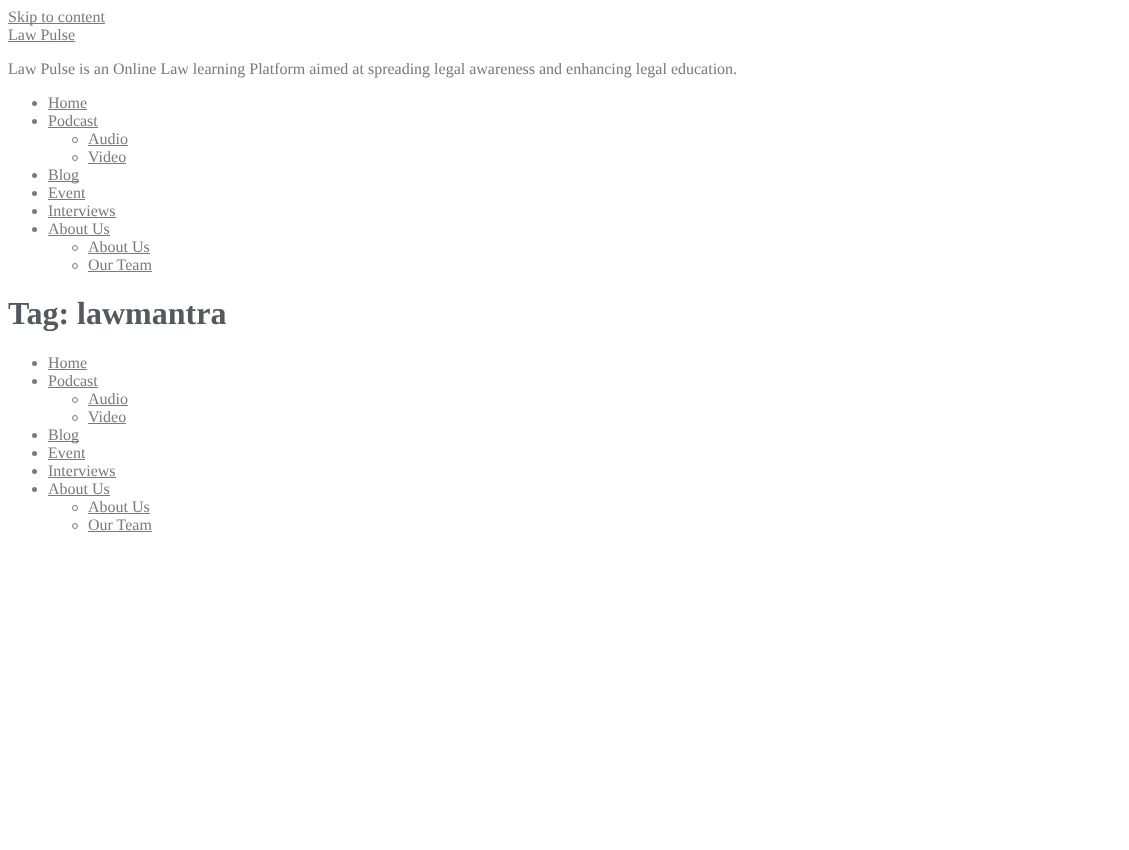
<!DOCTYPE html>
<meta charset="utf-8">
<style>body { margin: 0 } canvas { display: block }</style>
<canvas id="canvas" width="1129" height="850"></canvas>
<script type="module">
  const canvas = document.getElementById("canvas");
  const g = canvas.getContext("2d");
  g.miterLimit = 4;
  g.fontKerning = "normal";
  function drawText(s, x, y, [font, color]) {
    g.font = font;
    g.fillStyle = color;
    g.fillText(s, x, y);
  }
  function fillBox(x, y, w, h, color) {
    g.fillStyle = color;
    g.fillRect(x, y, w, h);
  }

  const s1 = ["16px Liberation Serif", "#7A7A7A"];
  const s2 = ["bold 32px Liberation Serif", "#54595F"];

  fillBox(0, 0, 1129, 850, "#FFFFFF");
  fillBox(8, 23, 97, 1, "#7A7A7A");
  drawText("Skip to content", 8, 22, s1);
  drawText("Law Pulse", 8, 40, s1);
  fillBox(8, 41, 67, 1, "#7A7A7A");
  drawText("Law Pulse is an Online Law learning Platform aimed at spreading legal awareness and enhancing legal education.", 8, 74, s1);
  g.beginPath();
  g.arc(34.5, 103.5, 2.5, 0, Math.PI * 2);
  g.fill();
  drawText("Home", 48, 108, s1);
  fillBox(48, 109, 39, 1, "#7A7A7A");
  g.beginPath();
  g.arc(34.5, 121.5, 2.5, 0, Math.PI * 2);
  g.fill();
  drawText("Podcast", 48, 126, s1);
  fillBox(48, 127, 50, 1, "#7A7A7A");
  g.beginPath();
  g.arc(75, 140, 2.5, 0, Math.PI * 2);
  g.strokeStyle = "#7A7A7A";
  g.stroke();
  drawText("Audio", 88, 144, s1);
  fillBox(88, 145, 40, 1, "#7A7A7A");
  g.beginPath();
  g.arc(75, 158, 2.5, 0, Math.PI * 2);
  g.stroke();
  drawText("Video", 88, 162, s1);
  fillBox(88, 163, 38, 1, "#7A7A7A");
  g.beginPath();
  g.arc(34.5, 175.5, 2.5, 0, Math.PI * 2);
  g.fill();
  fillBox(48, 181, 31, 1, "#7A7A7A");
  drawText("Blog", 48, 180, s1);
  g.beginPath();
  g.arc(34.5, 193.5, 2.5, 0, Math.PI * 2);
  g.fill();
  drawText("Event", 48, 198, s1);
  fillBox(48, 199, 37, 1, "#7A7A7A");
  g.beginPath();
  g.arc(34.5, 211.5, 2.5, 0, Math.PI * 2);
  g.fill();
  drawText("Interviews", 48, 216, s1);
  fillBox(48, 217, 68, 1, "#7A7A7A");
  g.beginPath();
  g.arc(34.5, 229.5, 2.5, 0, Math.PI * 2);
  g.fill();
  drawText("About Us", 48, 234, s1);
  fillBox(48, 235, 62, 1, "#7A7A7A");
  g.beginPath();
  g.arc(75, 248, 2.5, 0, Math.PI * 2);
  g.stroke();
  drawText("About Us", 88, 252, s1);
  fillBox(88, 253, 62, 1, "#7A7A7A");
  g.beginPath();
  g.arc(75, 266, 2.5, 0, Math.PI * 2);
  g.stroke();
  drawText("Our Team", 88, 270, s1);
  fillBox(88, 271, 64, 1, "#7A7A7A");
  drawText("Tag: lawmantra", 8, 324, s2);
  g.fillStyle = "#7A7A7A";
  g.beginPath();
  g.arc(34.5, 363.5, 2.5, 0, Math.PI * 2);
  g.fill();
  drawText("Home", 48, 368, s1);
  fillBox(48, 369, 39, 1, "#7A7A7A");
  g.beginPath();
  g.arc(34.5, 381.5, 2.5, 0, Math.PI * 2);
  g.fill();
  drawText("Podcast", 48, 386, s1);
  fillBox(48, 387, 50, 1, "#7A7A7A");
  g.beginPath();
  g.arc(75, 400, 2.5, 0, Math.PI * 2);
  g.stroke();
  drawText("Audio", 88, 404, s1);
  fillBox(88, 405, 40, 1, "#7A7A7A");
  g.beginPath();
  g.arc(75, 418, 2.5, 0, Math.PI * 2);
  g.stroke();
  drawText("Video", 88, 422, s1);
  fillBox(88, 423, 38, 1, "#7A7A7A");
  g.beginPath();
  g.arc(34.5, 435.5, 2.5, 0, Math.PI * 2);
  g.fill();
  fillBox(48, 441, 31, 1, "#7A7A7A");
  drawText("Blog", 48, 440, s1);
  g.beginPath();
  g.arc(34.5, 453.5, 2.5, 0, Math.PI * 2);
  g.fill();
  drawText("Event", 48, 458, s1);
  fillBox(48, 459, 37, 1, "#7A7A7A");
  g.beginPath();
  g.arc(34.5, 471.5, 2.5, 0, Math.PI * 2);
  g.fill();
  drawText("Interviews", 48, 476, s1);
  fillBox(48, 477, 68, 1, "#7A7A7A");
  g.beginPath();
  g.arc(34.5, 489.5, 2.5, 0, Math.PI * 2);
  g.fill();
  drawText("About Us", 48, 494, s1);
  fillBox(48, 495, 62, 1, "#7A7A7A");
  g.beginPath();
  g.arc(75, 508, 2.5, 0, Math.PI * 2);
  g.stroke();
  drawText("About Us", 88, 512, s1);
  fillBox(88, 513, 62, 1, "#7A7A7A");
  g.beginPath();
  g.arc(75, 526, 2.5, 0, Math.PI * 2);
  g.stroke();
  drawText("Our Team", 88, 530, s1);
  fillBox(88, 531, 64, 1, "#7A7A7A");
</script>
